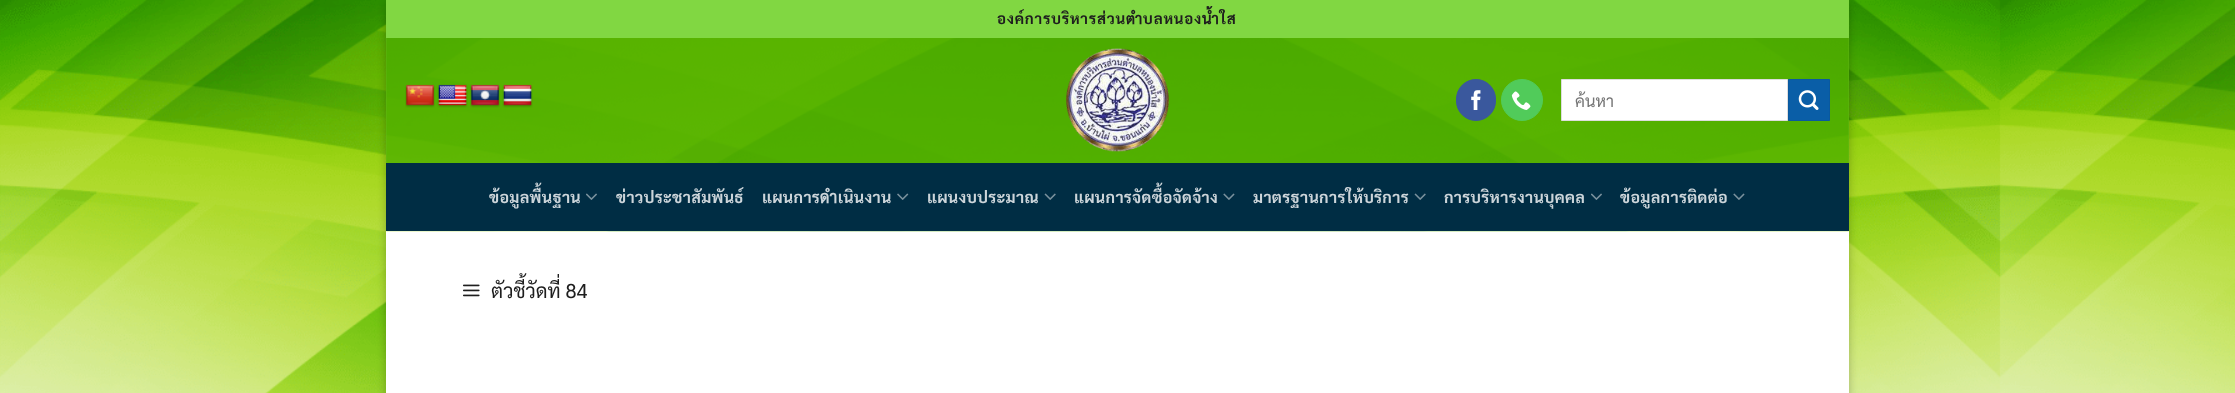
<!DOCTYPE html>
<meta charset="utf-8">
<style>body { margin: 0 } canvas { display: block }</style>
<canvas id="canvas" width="2235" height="393"></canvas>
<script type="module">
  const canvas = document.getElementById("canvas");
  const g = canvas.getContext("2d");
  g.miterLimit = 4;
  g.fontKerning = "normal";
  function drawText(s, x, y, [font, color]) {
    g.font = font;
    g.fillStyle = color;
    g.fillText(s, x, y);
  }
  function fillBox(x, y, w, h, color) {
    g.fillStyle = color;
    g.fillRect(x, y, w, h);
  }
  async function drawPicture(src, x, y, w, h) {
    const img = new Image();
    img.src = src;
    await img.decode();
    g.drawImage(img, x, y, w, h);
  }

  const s1 = ["bold 15px Sarabun", "#1E1E1E"];
  const s2 = ["16.5px Sarabun", "#757575"];
  const s3 = ["bold 16px Sarabun", "#CCD5DA"];
  const s4 = ["20px Sarabun", "#1E1E1E"];

  fillBox(0, 0, 2235, 393, "#FFFFFF");
  await drawPicture("pic1.png", 0, 0, 2235, 393);
  g.fillStyle = "rgba(0, 0, 0, 0.23)";
  g.filter = "blur(4px)";
  g.beginPath();
  g.rect(386, 4, 1463, 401);
  g.fill();
  g.filter = "none";
  fillBox(386, 38, 1463, 355, "#FFFFFF");
  fillBox(386, 0, 1463, 38, "#81D742");
  g.letterSpacing = "0.75px";
  drawText("องค์การบริหารส่วนตำบลหนองน้ำใส", 997, 24, s1);
  await drawPicture("pic2.png", 386, 38, 1463, 194);
  fillBox(386, 38, 1463, 125, "rgba(83, 178, 0, 0.85)");
  await drawPicture("pic3.png", 405, 84, 30, 24);
  await drawPicture("pic4.png", 437, 84, 31, 24);
  await drawPicture("pic5.png", 470, 84, 30, 24);
  await drawPicture("pic6.png", 502, 84, 31, 24);
  await drawPicture("pic7.png", 1066, 48, 103, 104);
  g.fillStyle = "#3A589D";
  g.beginPath();
  g.roundRect(1456.5, 79.5, 39, 41, 19.5);
  g.fill();
  g.strokeStyle = "#3A589D";
  g.stroke();
  await drawPicture("pic8.png", 1471, 90, 10, 20);
  g.fillStyle = "#51CB5A";
  g.beginPath();
  g.arc(1522, 100, 20.5, 0, Math.PI * 2);
  g.fill();
  g.strokeStyle = "#51CB5A";
  g.stroke();
  await drawPicture("pic9.png", 1511, 91, 20, 19);
  g.fillStyle = "#FFFFFF";
  g.beginPath();
  g.rect(1561.5, 79.5, 226, 41);
  g.fill();
  g.strokeStyle = "#DDDDDD";
  g.stroke();
  g.save();
  g.beginPath();
  g.rect(1575, 90, 194, 21);
  g.clip();
  g.letterSpacing = "0px";
  drawText("ค้นหา", 1575, 107, s2);
  g.restore();
  g.fillStyle = "#0A5EA7";
  g.beginPath();
  g.rect(1788.5, 79.5, 41, 41);
  g.fill();
  g.strokeStyle = "#0A599F";
  g.stroke();
  await drawPicture("pic10.png", 1798, 90, 21, 20);
  fillBox(386, 163, 1463, 68, "#002D44");
  g.letterSpacing = "0.3px";
  drawText("ข้อมูลพื้นฐาน", 489, 203, s3);
  await drawPicture("pic11.png", 586, 193, 11, 7);
  drawText("ข่าวประชาสัมพันธ์", 616, 203, s3);
  drawText("แผนการดำเนินงาน", 762, 203, s3);
  await drawPicture("pic12.png", 897, 193, 12, 7);
  drawText("แผนงบประมาณ", 927, 203, s3);
  await drawPicture("pic13.png", 1044, 193, 12, 7);
  drawText("แผนการจัดซื้อจัดจ้าง", 1074, 203, s3);
  await drawPicture("pic14.png", 1223, 193, 12, 7);
  drawText("มาตรฐานการให้บริการ", 1253, 203, s3);
  await drawPicture("pic13.png", 1414, 193, 12, 7);
  drawText("การบริหารงานบุคคล", 1444, 203, s3);
  await drawPicture("pic11.png", 1591, 193, 11, 7);
  drawText("ข้อมูลการติดต่อ", 1620, 203, s3);
  await drawPicture("pic14.png", 1733, 193, 12, 7);
  await drawPicture("pic15.png", 463, 284, 17, 13);
  g.letterSpacing = "0px";
  drawText("ตัวชี้วัดที่ 84", 491, 298, s4);
</script>
